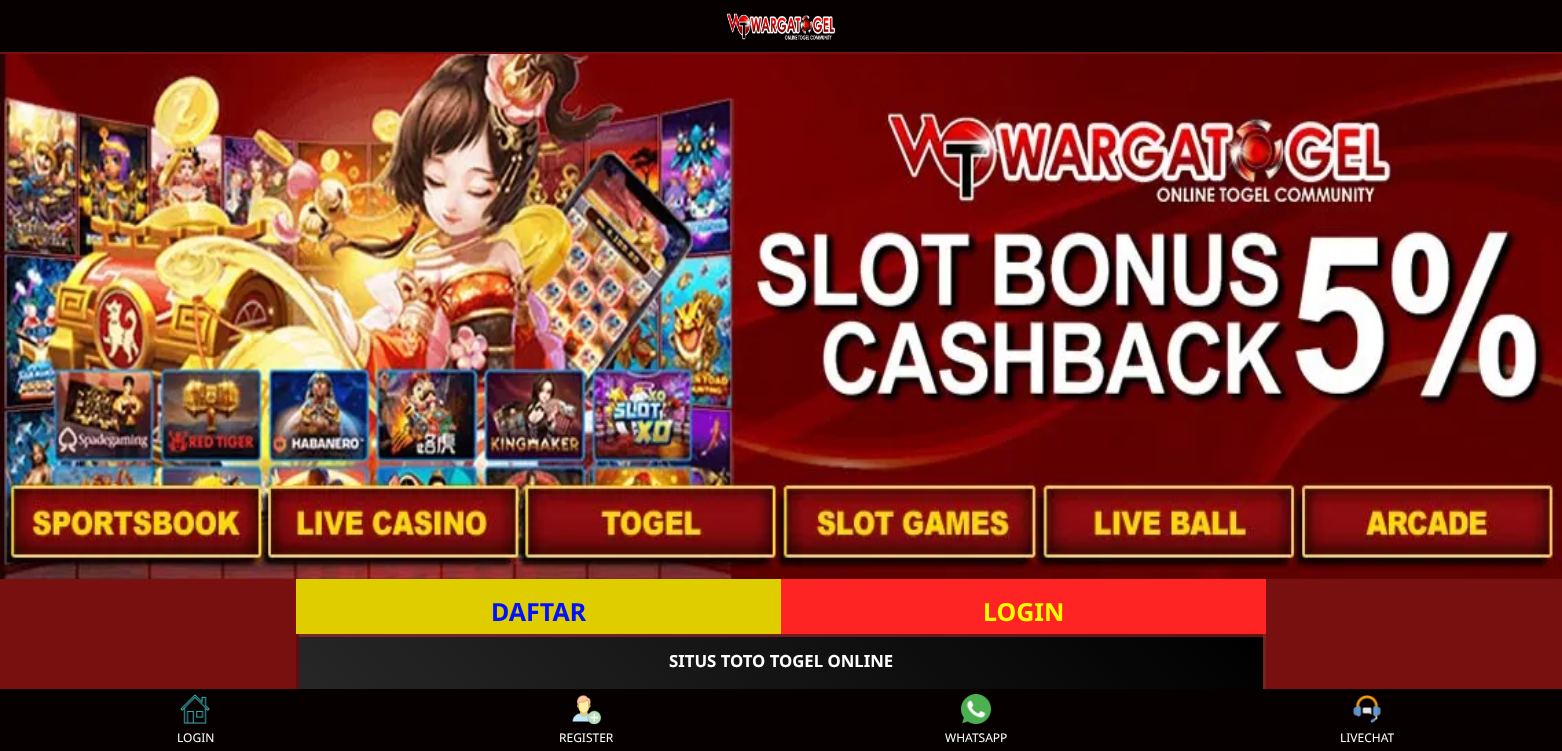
<!DOCTYPE html>
<meta charset="utf-8">
<style>body { margin: 0 } canvas { display: block }</style>
<canvas id="canvas" width="1562" height="751"></canvas>
<script type="module">
  const canvas = document.getElementById("canvas");
  const g = canvas.getContext("2d");
  g.miterLimit = 4;
  g.fontKerning = "normal";
  function drawText(s, x, y, [font, color]) {
    g.font = font;
    g.fillStyle = color;
    g.fillText(s, x, y);
  }
  function fillBox(x, y, w, h, color) {
    g.fillStyle = color;
    g.fillRect(x, y, w, h);
  }
  async function drawPicture(src, x, y, w, h) {
    const img = new Image();
    img.src = src;
    await img.decode();
    g.drawImage(img, x, y, w, h);
  }
  let gradient;

  const s1 = ["bold 25px Noto Sans", "#0011FF"];
  const s2 = ["bold 25px Noto Sans", "#FFFB00"];
  const s3 = ["bold 16.75px Noto Sans", "#FFFFFF"];
  const s4 = ["12px Noto Sans", "#FFFFFF"];

  fillBox(0, 0, 1562, 751, "#791010");
  fillBox(0, 0, 1562, 52, "#070000");
  await drawPicture("pic1.png", 727, 13, 108, 27);
  await drawPicture("pic2.png", 0, 54, 1562, 525);
  fillBox(296, 579, 485, 55, "#E0CD00");
  drawText("DAFTAR", 491, 621, s1);
  fillBox(781, 579, 485, 55, "#FF2424");
  drawText("LOGIN", 983, 621, s2);
  gradient = g.createLinearGradient(-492, 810, 126, 193);
  gradient.addColorStop(0, "#2F2F2F");
  gradient.addColorStop(1, "#000000");
  g.fillStyle = gradient;
  g.beginPath();
  g.roundRect(296, 634, 3, 3, [3, 0, 0, 0]);
  g.fill();
  gradient = g.createLinearGradient(472, 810, 1090, 193);
  gradient.addColorStop(0, "#2F2F2F");
  gradient.addColorStop(1, "#000000");
  g.fillStyle = gradient;
  g.fillRect(299, 634, 964, 3);
  gradient = g.createLinearGradient(1436, 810, 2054, 193);
  gradient.addColorStop(0, "#2F2F2F");
  gradient.addColorStop(1, "#000000");
  g.fillStyle = gradient;
  g.beginPath();
  g.roundRect(1263, 634, 3, 3, [0, 3, 0, 0]);
  g.fill();
  gradient = g.createLinearGradient(-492, 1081, 126, 464);
  gradient.addColorStop(0, "#2F2F2F");
  gradient.addColorStop(1, "#000000");
  g.fillStyle = gradient;
  g.fillRect(296, 637, 3, 52);
  gradient = g.createLinearGradient(472, 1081, 1090, 464);
  gradient.addColorStop(0, "#2F2F2F");
  gradient.addColorStop(1, "#000000");
  g.fillStyle = gradient;
  g.fillRect(299, 637, 964, 52);
  gradient = g.createLinearGradient(1436, 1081, 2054, 464);
  gradient.addColorStop(0, "#2F2F2F");
  gradient.addColorStop(1, "#000000");
  g.fillStyle = gradient;
  g.fillRect(1263, 637, 3, 52);
  g.beginPath();
  g.roundRect(297.5, 635.5, 967, 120, 1.5);
  g.strokeStyle = "rgba(243, 30, 30, 0.4)";
  g.lineWidth = 3;
  g.stroke();
  drawText("SITUS TOTO TOGEL ONLINE", 669, 667, s3);
  fillBox(0, 689, 1562, 62, "#070000");
  await drawPicture("pic3.png", 180, 694, 30, 30);
  drawText("LOGIN", 177, 742, s4);
  await drawPicture("pic4.png", 572, 695, 29, 29);
  drawText("REGISTER", 559, 742, s4);
  await drawPicture("pic5.png", 961, 694, 30, 30);
  drawText("WHATSAPP", 945, 742, s4);
  await drawPicture("pic6.png", 1353, 695, 29, 28);
  drawText("LIVECHAT", 1340, 742, s4);
</script>
